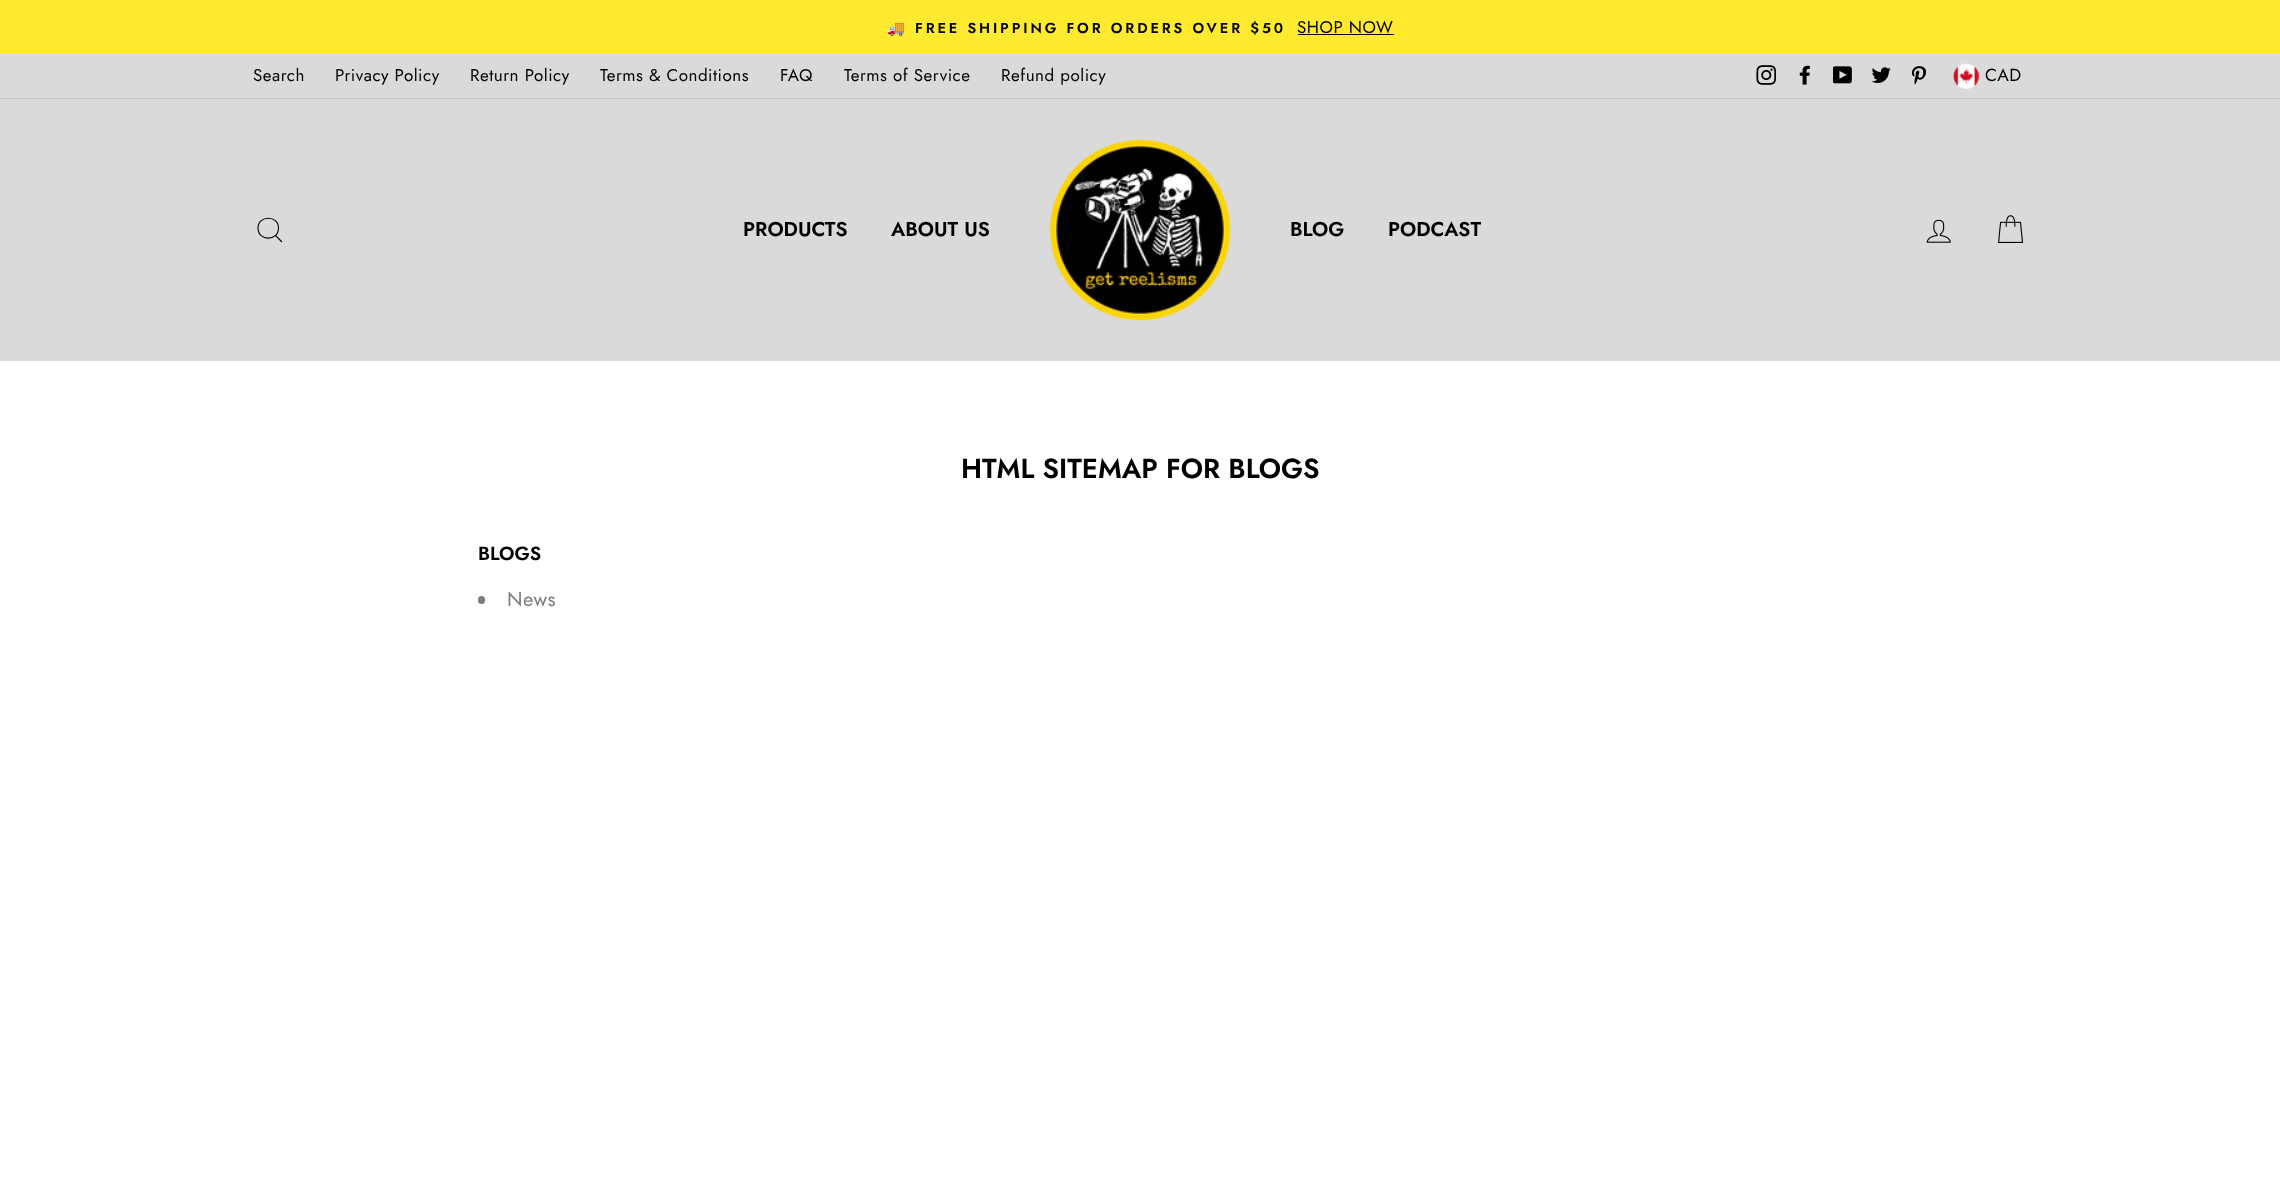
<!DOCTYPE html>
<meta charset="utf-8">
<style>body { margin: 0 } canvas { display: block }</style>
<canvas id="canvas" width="2280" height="1190"></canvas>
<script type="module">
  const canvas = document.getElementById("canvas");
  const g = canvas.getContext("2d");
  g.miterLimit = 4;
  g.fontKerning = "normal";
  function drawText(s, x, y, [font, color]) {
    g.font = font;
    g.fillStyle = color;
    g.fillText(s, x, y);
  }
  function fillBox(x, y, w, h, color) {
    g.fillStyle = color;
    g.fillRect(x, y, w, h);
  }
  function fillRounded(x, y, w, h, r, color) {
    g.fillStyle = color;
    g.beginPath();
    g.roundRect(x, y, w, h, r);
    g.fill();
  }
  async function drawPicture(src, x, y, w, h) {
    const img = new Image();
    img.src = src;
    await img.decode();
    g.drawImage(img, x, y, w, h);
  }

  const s1 = ["bold 14.45px Noto Color Emoji", "#000000"];
  const s2 = ["600 14.45px Jost", "#000000"];
  const s3 = ["17px Jost", "#000000"];
  const s4 = ["17.5px Jost", "#000000"];
  const s5 = ["600 20px Jost", "#000000"];
  const s6 = ["600 27.5px Jost", "#000000"];
  const s7 = ["600 19px Jost", "#000000"];
  const s8 = ["20px Jost", "#7C7C7C"];

  fillBox(0, 0, 2280, 1190, "#FFFFFF");
  fillBox(0, 0, 2280, 54, "#FFEA30");
  g.letterSpacing = "2.9px";
  drawText("🚚", 887, 33, s1);
  drawText("FREE SHIPPING FOR ORDERS OVER $50", 915, 33, s2);
  g.letterSpacing = "0.5px";
  drawText("SHOP NOW", 1297, 33, s3);
  fillBox(1298, 34, 96, 1, "#030000");
  fillBox(0, 54, 2280, 44, "#DADADA");
  drawText("Search", 253, 81, s3);
  drawText("Privacy Policy", 335, 81, s3);
  drawText("Return Policy", 470, 81, s3);
  drawText("Terms & Conditions", 600, 81, s3);
  drawText("FAQ", 780, 81, s3);
  drawText("Terms of Service", 844, 81, s3);
  drawText("Refund policy", 1001, 81, s3);
  await drawPicture("pic1.png", 1756, 65, 20, 20);
  await drawPicture("pic2.png", 1799, 65, 11, 20);
  await drawPicture("pic3.png", 1833, 66, 19, 18);
  await drawPicture("pic4.png", 1871, 67, 20, 16);
  await drawPicture("pic5.png", 1911, 66, 15, 19);
  await drawPicture("pic6.png", 1953, 63, 26, 26);
  drawText("CAD", 1985, 81, s4);
  fillBox(0, 99, 2280, 262, "#DADADA");
  fillBox(0, 98, 2280, 1, "#C4C4C4");
  g.beginPath();
  g.moveTo(278.5, 228);
  g.bezierCurveTo(278.5, 241.5, 258, 241.5, 258, 228);
  g.bezierCurveTo(258, 215, 278.5, 215, 278.5, 228);
  g.closePath();
  g.moveTo(282, 242);
  g.lineTo(275.5, 235.5);
  g.strokeStyle = "#000000";
  g.lineWidth = 1.1;
  g.stroke();
  g.letterSpacing = "0px";
  drawText("PRODUCTS", 743, 236, s5);
  drawText("ABOUT US", 891, 236, s5);
  await drawPicture("pic7.png", 1049, 139, 182, 182);
  drawText("BLOG", 1290, 236, s5);
  drawText("PODCAST", 1388, 236, s5);
  await drawPicture("pic8.png", 1926, 219, 25, 24);
  await drawPicture("pic9.png", 1998, 215, 26, 28);
  drawText("HTML SITEMAP FOR BLOGS", 961, 478, s6);
  drawText("BLOGS", 478, 560, s7);
  fillRounded(478, 596, 7, 8, 3.5, "#7C7C7C");
  g.letterSpacing = "0.5px";
  drawText("News", 507, 606, s8);
</script>
